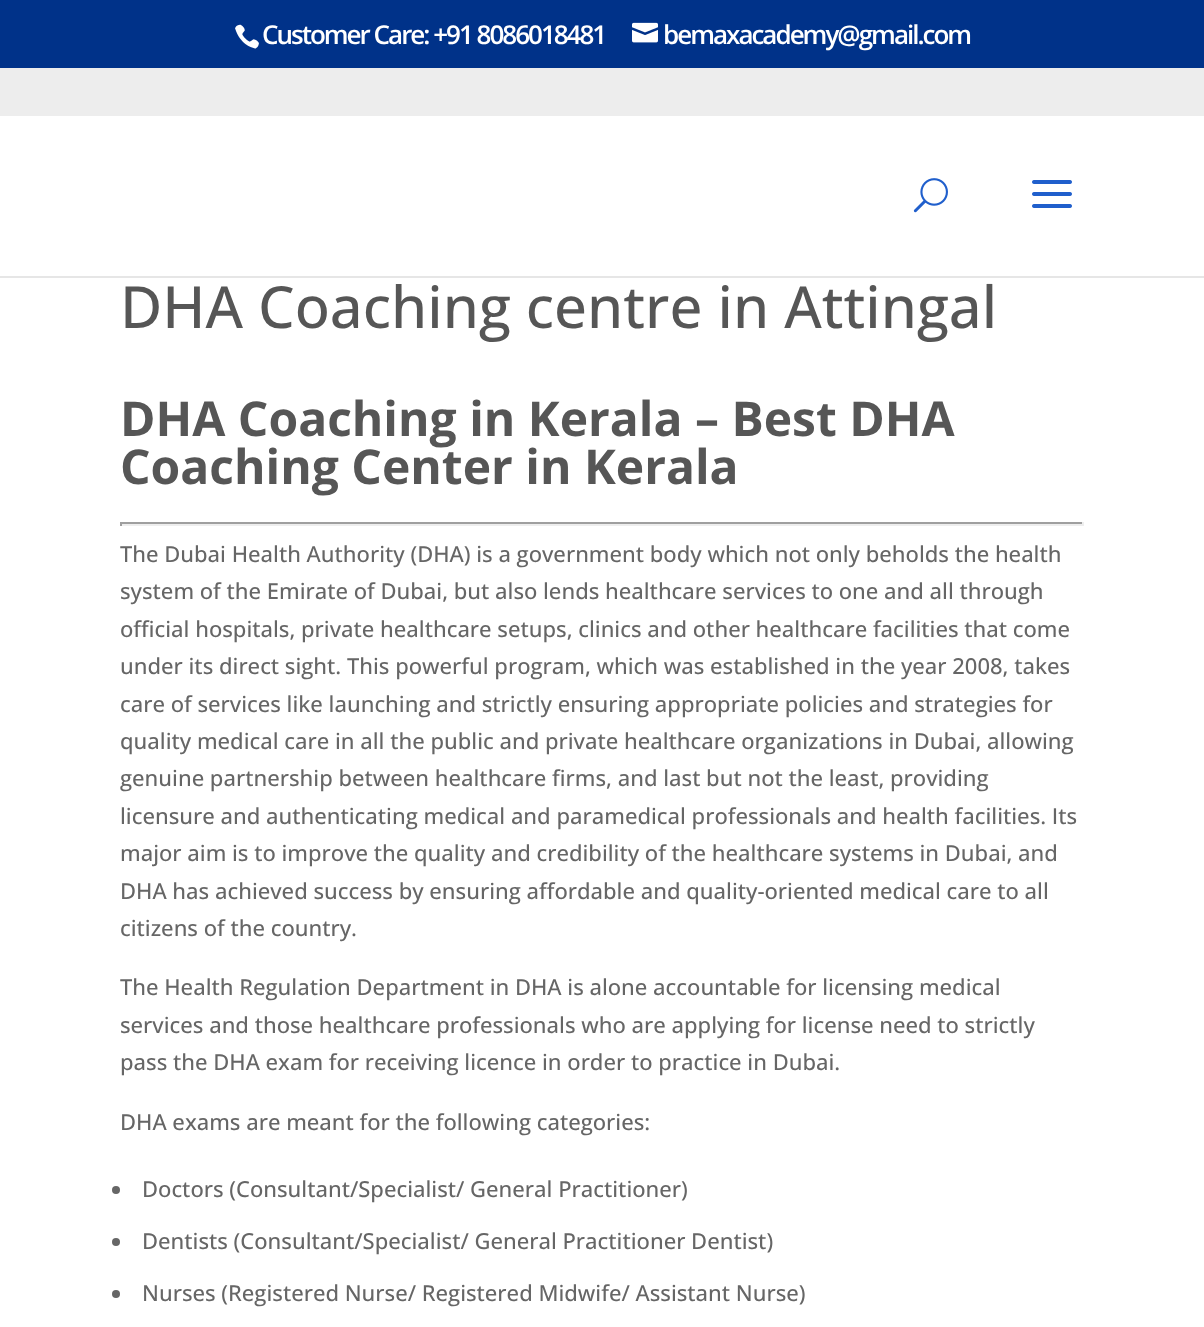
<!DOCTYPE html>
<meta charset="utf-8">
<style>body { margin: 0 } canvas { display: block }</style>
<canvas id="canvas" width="1204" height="1327"></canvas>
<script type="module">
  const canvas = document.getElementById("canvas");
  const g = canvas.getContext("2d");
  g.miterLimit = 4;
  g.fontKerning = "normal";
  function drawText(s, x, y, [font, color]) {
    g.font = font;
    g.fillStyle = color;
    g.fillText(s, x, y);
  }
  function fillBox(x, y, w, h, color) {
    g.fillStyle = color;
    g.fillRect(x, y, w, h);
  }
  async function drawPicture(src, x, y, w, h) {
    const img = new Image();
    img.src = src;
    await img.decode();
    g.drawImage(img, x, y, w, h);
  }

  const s1 = ["600 26px Open Sans", "#FFFFFF"];
  const s2 = ["500 58px Open Sans", "#565656"];
  const s3 = ["bold 48px Open Sans", "#565656"];
  const s4 = ["500 22px Open Sans", "#666666"];

  fillBox(0, 0, 1204, 1327, "#EDEDED");
  fillBox(0, 0, 1204, 68, "#003289");
  await drawPicture("pic1.png", 235, 24, 24, 25);
  g.letterSpacing = "-2px";
  drawText("Customer Care: +91 8086018481", 262, 44, s1);
  await drawPicture("pic2.png", 632, 22, 26, 21);
  drawText("bemaxacademy@gmail.com", 663, 44, s1);
  fillBox(0, 276, 1204, 2, "#E6E6E6");
  fillBox(0, 116, 1204, 160, "#FFFFFF");
  await drawPicture("pic3.png", 913, 178, 35, 35);
  await drawPicture("pic4.png", 1032, 180, 40, 28);
  fillBox(0, 278, 1204, 1049, "#FFFFFF");
  g.letterSpacing = "0px";
  drawText("DHA Coaching centre in Attingal", 120, 328, s2);
  drawText("DHA Coaching in Kerala – Best DHA", 120, 436, s3);
  drawText("Coaching Center in Kerala", 120, 484, s3);
  fillBox(120, 522, 964, 2, "#9F9F9F");
  fillBox(1082, 522, 2, 4, "#EEEEEE");
  fillBox(120, 524, 964, 2, "#EEEEEE");
  fillBox(120, 522, 2, 4, "#9F9F9F");
  drawText("The Dubai Health Authority (DHA) is a government body which not only beholds the health", 120, 562, s4);
  drawText("system of the Emirate of Dubai, but also lends healthcare services to one and all through", 120, 599, s4);
  drawText("official hospitals, private healthcare setups, clinics and other healthcare facilities that come", 120, 637, s4);
  drawText("under its direct sight. This powerful program, which was established in the year 2008, takes", 120, 674, s4);
  drawText("care of services like launching and strictly ensuring appropriate policies and strategies for", 120, 712, s4);
  drawText("quality medical care in all the public and private healthcare organizations in Dubai, allowing", 120, 749, s4);
  drawText("genuine partnership between healthcare firms, and last but not the least, providing", 120, 786, s4);
  drawText("licensure and authenticating medical and paramedical professionals and health facilities. Its", 120, 824, s4);
  drawText("major aim is to improve the quality and credibility of the healthcare systems in Dubai, and", 120, 861, s4);
  drawText("DHA has achieved success by ensuring affordable and quality-oriented medical care to all", 120, 899, s4);
  drawText("citizens of the country.", 120, 936, s4);
  drawText("The Health Regulation Department in DHA is alone accountable for licensing medical", 120, 995, s4);
  drawText("services and those healthcare professionals who are applying for license need to strictly", 120, 1033, s4);
  drawText("pass the DHA exam for receiving licence in order to practice in Dubai.", 120, 1070, s4);
  drawText("DHA exams are meant for the following categories:", 120, 1130, s4);
  g.beginPath();
  g.arc(116, 1190, 4, 0, Math.PI * 2);
  g.fill();
  drawText("Doctors (Consultant/Specialist/ General Practitioner)", 142, 1197, s4);
  g.beginPath();
  g.arc(116, 1242, 4, 0, Math.PI * 2);
  g.fill();
  drawText("Dentists (Consultant/Specialist/ General Practitioner Dentist)", 142, 1249, s4);
  g.beginPath();
  g.arc(116, 1294, 4, 0, Math.PI * 2);
  g.fill();
  drawText("Nurses (Registered Nurse/ Registered Midwife/ Assistant Nurse)", 142, 1301, s4);
</script>
